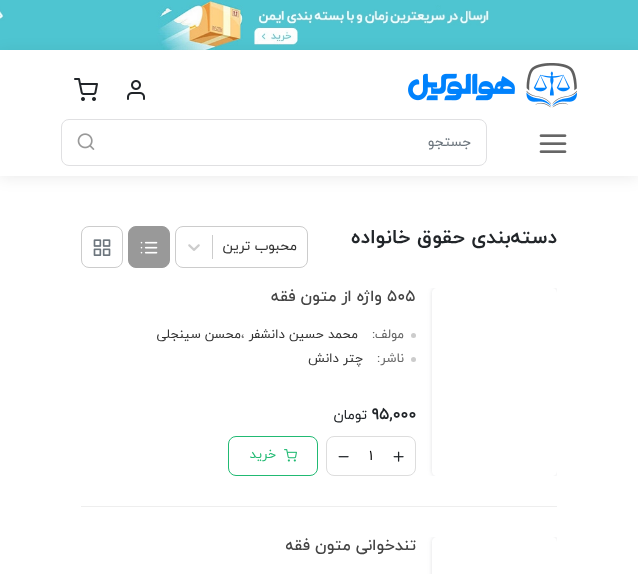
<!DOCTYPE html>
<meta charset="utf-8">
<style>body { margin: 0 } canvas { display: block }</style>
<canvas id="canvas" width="638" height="574"></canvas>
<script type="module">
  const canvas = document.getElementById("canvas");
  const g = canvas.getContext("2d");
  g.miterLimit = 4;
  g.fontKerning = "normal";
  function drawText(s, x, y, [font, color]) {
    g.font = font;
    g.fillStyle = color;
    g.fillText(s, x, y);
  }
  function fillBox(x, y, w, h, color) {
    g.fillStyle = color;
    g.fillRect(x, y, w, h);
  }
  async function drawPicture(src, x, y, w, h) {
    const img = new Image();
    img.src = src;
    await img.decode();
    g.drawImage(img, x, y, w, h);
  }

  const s1 = ["14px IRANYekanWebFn", "#6C757D"];
  const s2 = ["bold 20px IRANYekanWebFn", "#212529"];
  const s3 = ["14px IRANYekanWebFn", "#333333"];
  const s4 = ["500 16px IRANYekanWebFn", "#444444"];
  const s5 = ["13px IRANYekanWebFn", "#666666"];
  const s6 = ["13px IRANYekanWebFn", "#333333"];
  const s7 = ["bold 16px IRANYekanWebFn", "#212529"];
  const s8 = ["14px IRANYekanWebFn", "#212529"];
  const s9 = ["14px IRANYekanWebFn", "#000000"];
  const s10 = ["13px IRANYekanWebFn", "#21BA73"];

  fillBox(0, 0, 638, 574, "#FFFFFF");
  fillBox(490, 0, 148, 50, "#4FC5D1");
  await drawPicture("pic1.png", 0, 0, 490, 50);
  g.save();
  g.beginPath();
  g.moveTo(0, 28);
  g.lineTo(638, 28);
  g.lineTo(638, 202);
  g.lineTo(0, 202);
  g.closePath();
  g.moveTo(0, 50);
  g.lineTo(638, 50);
  g.lineTo(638, 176);
  g.lineTo(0, 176);
  g.closePath();
  g.clip("evenodd");
  g.fillStyle = "rgba(0, 0, 0, 0.08)";
  g.filter = "blur(7.5px)";
  g.beginPath();
  g.rect(0, 52, 638, 126);
  g.fill();
  g.filter = "none";
  g.restore();
  await drawPicture("pic2.png", 408, 63, 169, 45);
  await drawPicture("pic3.png", 127, 80, 18, 20);
  await drawPicture("pic4.png", 74, 78, 24, 23);
  await drawPicture("pic5.png", 539, 134, 28, 19);
  g.beginPath();
  g.roundRect(61.5, 119.5, 425, 46, 7.5);
  g.strokeStyle = "#E0E0E2";
  g.stroke();
  g.direction = "rtl";
  drawText("جستجو", 471, 146, s1);
  await drawPicture("pic6.png", 77, 133, 18, 17);
  drawText("دسته‌بندی", 557, 243, s2);
  drawText("حقوق خانواده", 465, 243, s2);
  g.beginPath();
  g.roundRect(175.5, 226.5, 132, 41, 7.5);
  g.strokeStyle = "#CCCCCC";
  g.stroke();
  drawText("محبوب ترین", 297, 250, s3);
  fillBox(212, 235, 1, 24, "#CCCCCC");
  await drawPicture("pic7.png", 188, 244, 12, 7);
  g.fillStyle = "#999999";
  g.beginPath();
  g.roundRect(128.5, 226.5, 41, 41, 7.5);
  g.fill();
  g.strokeStyle = "#999999";
  g.stroke();
  await drawPicture("pic8.png", 140, 241, 18, 13);
  g.beginPath();
  g.roundRect(81.5, 226.5, 41, 41, 7.5);
  g.strokeStyle = "#CCCCCC";
  g.stroke();
  await drawPicture("pic9.png", 93, 239, 18, 17);
  fillBox(81, 506, 476, 1, "#EEEEEE");
  g.save();
  g.beginPath();
  g.rect(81, 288, 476, 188);
  g.clip();
  g.beginPath();
  g.moveTo(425, 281);
  g.lineTo(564, 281);
  g.lineTo(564, 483);
  g.lineTo(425, 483);
  g.closePath();
  g.moveTo(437, 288);
  g.lineTo(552, 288);
  g.bezierCurveTo(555, 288, 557, 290, 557, 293);
  g.lineTo(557, 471);
  g.bezierCurveTo(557, 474, 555, 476, 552, 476);
  g.lineTo(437, 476);
  g.bezierCurveTo(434, 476, 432, 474, 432, 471);
  g.lineTo(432, 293);
  g.bezierCurveTo(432, 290, 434, 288, 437, 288);
  g.closePath();
  g.clip("evenodd");
  g.fillStyle = "rgba(67, 71, 85, 0.17)";
  g.filter = "blur(2px)";
  g.beginPath();
  g.roundRect(432, 288, 125, 188, 5);
  g.fill();
  g.filter = "none";
  g.restore();
  g.direction = "ltr";
  drawText("505", 387, 301, s4);
  g.direction = "rtl";
  drawText("واژه از متون فقه", 382, 301, s4);
  g.fillStyle = "#CCCCCC";
  g.beginPath();
  g.arc(413.5, 335.5, 2.5, 0, Math.PI * 2);
  g.fill();
  drawText("مولف", 404, 338, s5);
  g.direction = "ltr";
  drawText(":", 372, 338, s5);
  g.direction = "rtl";
  drawText("محمد حسین دانشفر", 358, 338, s6);
  g.direction = "ltr";
  drawText("،", 241, 338, s5);
  g.direction = "rtl";
  drawText("محسن سینجلی", 241, 338, s6);
  g.fillStyle = "#CCCCCC";
  g.beginPath();
  g.arc(413.5, 359.5, 2.5, 0, Math.PI * 2);
  g.fill();
  drawText("ناشر", 404, 362, s5);
  g.direction = "ltr";
  drawText(":", 377, 362, s5);
  g.direction = "rtl";
  drawText("چتر دانش", 363, 362, s6);
  g.direction = "ltr";
  drawText("95,000", 372, 419, s7);
  g.direction = "rtl";
  drawText("تومان", 367, 419, s8);
  g.beginPath();
  g.roundRect(326.5, 436.5, 89, 39, 7.5);
  g.strokeStyle = "#DDDDDD";
  g.stroke();
  await drawPicture("pic10.png", 393, 451, 11, 11);
  g.direction = "ltr";
  drawText("1", 369, 460, s9);
  await drawPicture("pic11.png", 338, 456, 11, 2);
  g.beginPath();
  g.roundRect(228.5, 436.5, 89, 39, 7.5);
  g.strokeStyle = "#21BA73";
  g.stroke();
  await drawPicture("pic12.png", 284, 449, 13, 13);
  g.direction = "rtl";
  drawText("خرید", 276, 458, s10);
  g.save();
  g.beginPath();
  g.rect(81, 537, 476, 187);
  g.clip();
  g.beginPath();
  g.moveTo(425, 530);
  g.lineTo(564, 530);
  g.lineTo(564, 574);
  g.lineTo(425, 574);
  g.closePath();
  g.moveTo(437, 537);
  g.lineTo(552, 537);
  g.bezierCurveTo(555, 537, 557, 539, 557, 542);
  g.lineTo(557, 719);
  g.bezierCurveTo(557, 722, 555, 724, 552, 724);
  g.lineTo(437, 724);
  g.bezierCurveTo(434, 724, 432, 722, 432, 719);
  g.lineTo(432, 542);
  g.bezierCurveTo(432, 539, 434, 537, 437, 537);
  g.closePath();
  g.clip("evenodd");
  g.fillStyle = "rgba(67, 71, 85, 0.17)";
  g.filter = "blur(2px)";
  g.beginPath();
  g.roundRect(432, 537, 125, 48, 5);
  g.fill();
  g.filter = "none";
  g.restore();
  drawText("تندخوانی متون فقه", 416, 550, s4);
</script>
